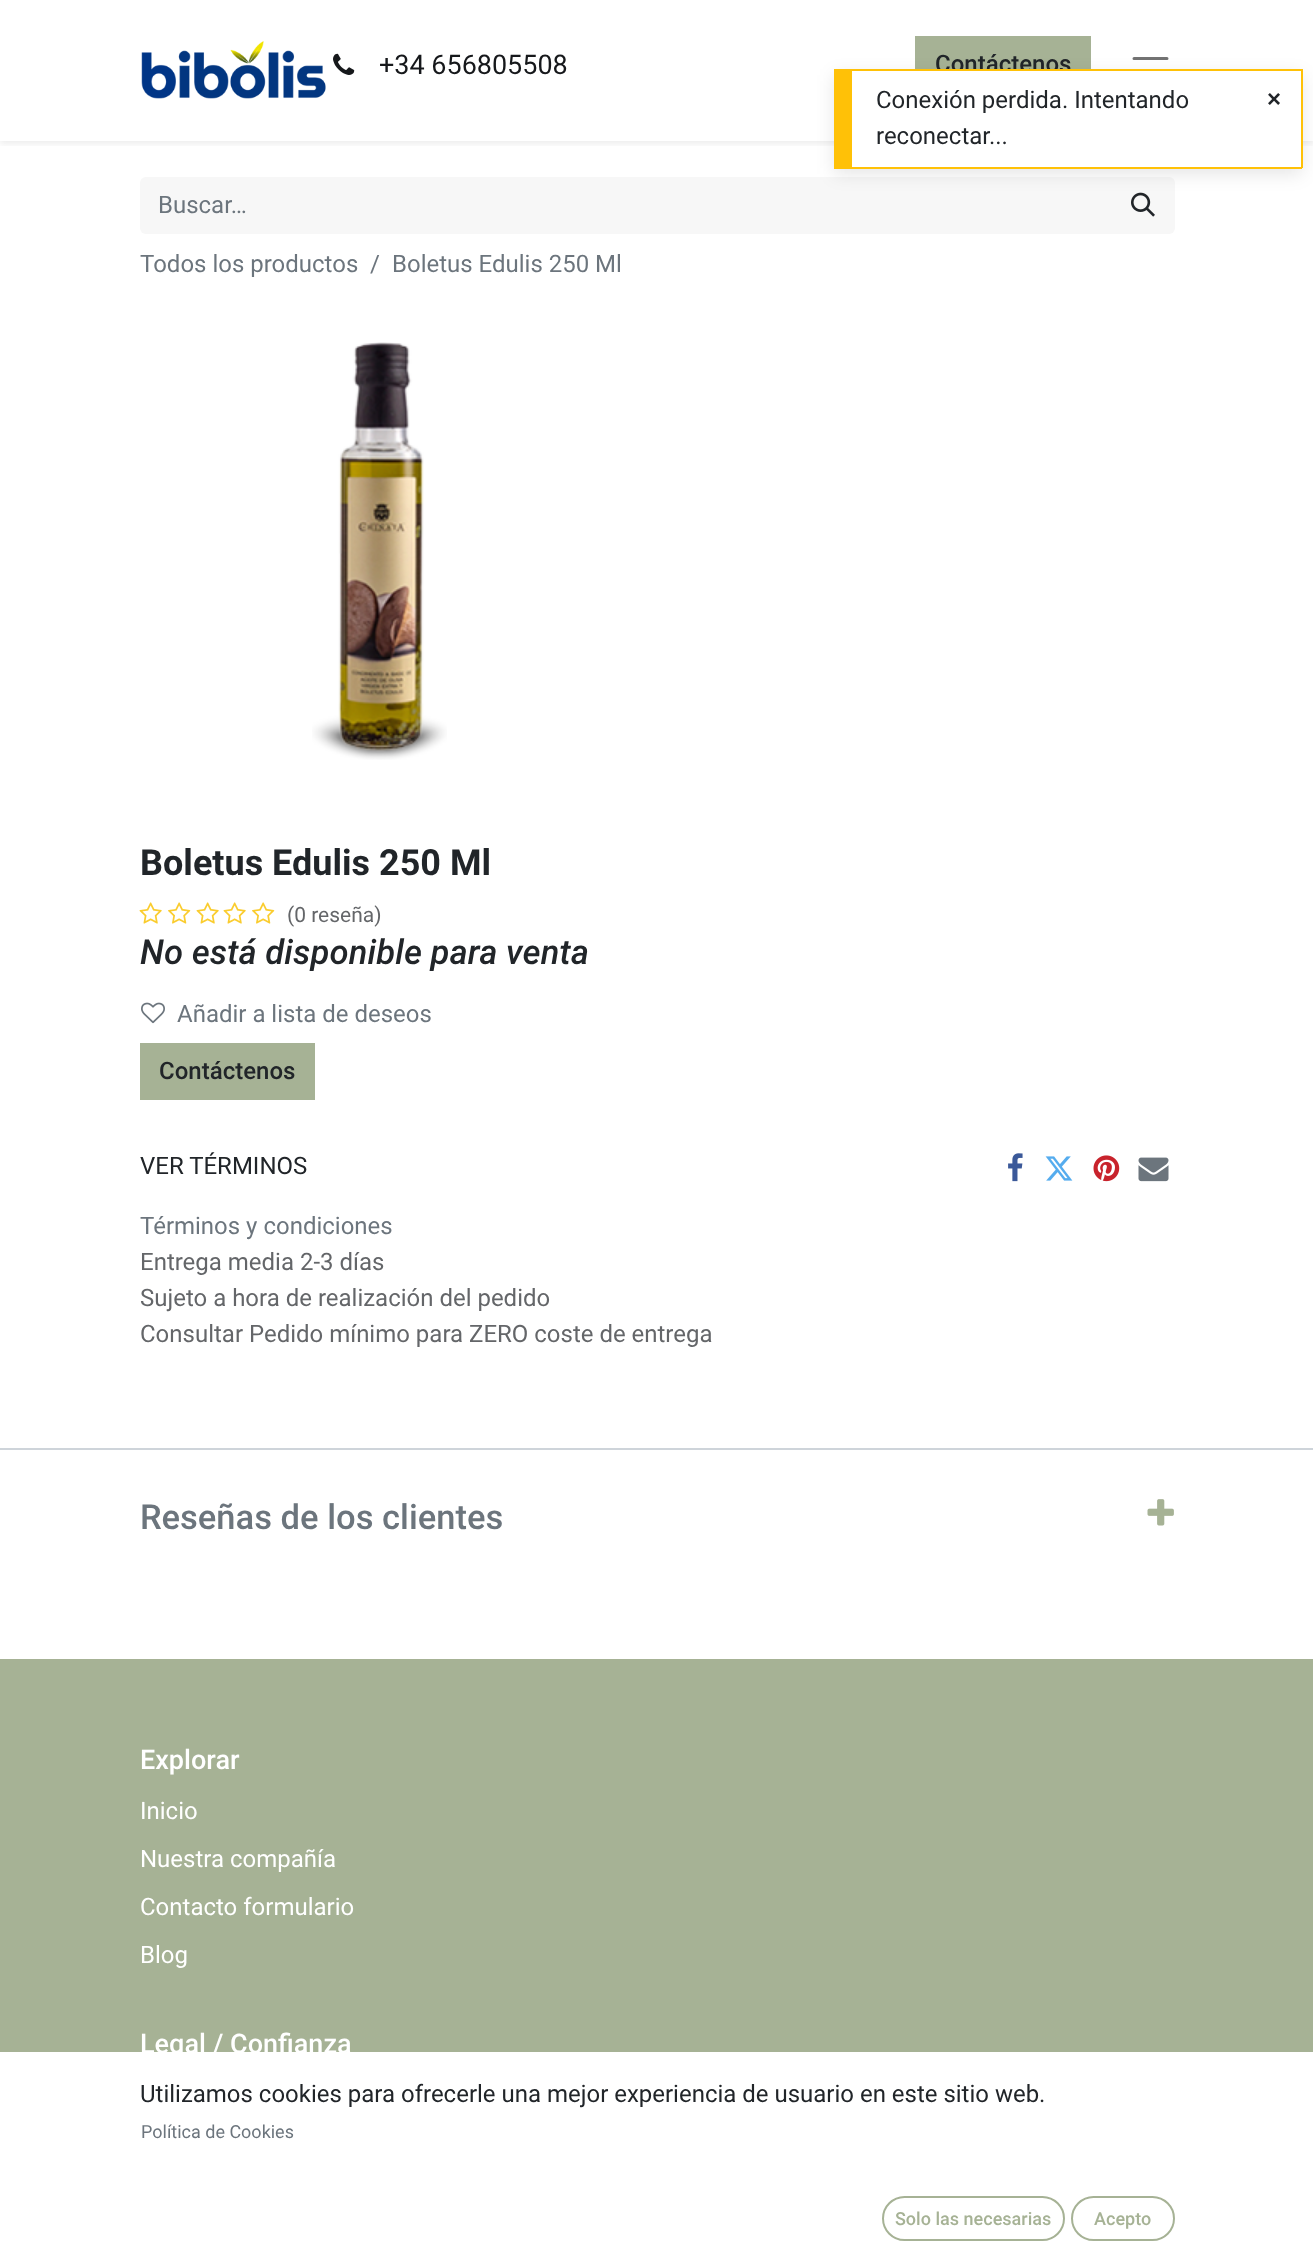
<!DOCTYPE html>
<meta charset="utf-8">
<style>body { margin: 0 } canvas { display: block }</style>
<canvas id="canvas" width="1313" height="2264"></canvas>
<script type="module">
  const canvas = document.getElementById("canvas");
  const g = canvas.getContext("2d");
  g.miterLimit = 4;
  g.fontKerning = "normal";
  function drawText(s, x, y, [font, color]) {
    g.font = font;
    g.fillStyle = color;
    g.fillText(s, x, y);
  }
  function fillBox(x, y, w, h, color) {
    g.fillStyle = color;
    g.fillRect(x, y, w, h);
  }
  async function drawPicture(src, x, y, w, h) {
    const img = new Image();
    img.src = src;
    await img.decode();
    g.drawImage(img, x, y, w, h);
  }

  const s1 = ["27px Roboto", "#16181B"];
  const s2 = ["500 24px Roboto", "#212529"];
  const s3 = ["24px Roboto", "#6C757D"];
  const s4 = ["bold 36px Roboto", "#212529"];
  const s5 = ["21px Roboto", "#646669"];
  const s6 = ["italic 500 34.5px Roboto", "#212529"];
  const s7 = ["24px Roboto", "#212529"];
  const s8 = ["24px Roboto", "#646669"];
  const s9 = ["500 34.5px Roboto", "#6C757D"];
  const s10 = ["500 27px Roboto", "#FFFFFF"];
  const s11 = ["24px Roboto", "#FFFFFF"];
  const s12 = ["18px Roboto", "#6C757D"];
  const s13 = ["500 18px Roboto", "#A6B295"];
  const s14 = ["bold 24px Liberation Sans", "#212529"];

  fillBox(0, 0, 1313, 2264, "#FFFFFF");
  g.save();
  g.beginPath();
  g.rect(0, 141, 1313, 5);
  g.clip();
  g.fillStyle = "rgba(0, 0, 0, 0.07)";
  g.filter = "blur(3px)";
  g.beginPath();
  g.rect(0, 3, 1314, 141);
  g.fill();
  g.filter = "none";
  g.restore();
  await drawPicture("pic1.png", 141, 41, 185, 58);
  await drawPicture("pic2.png", 333, 53, 22, 22);
  drawText("+34 656805508", 379, 74, s1);
  fillBox(915, 36, 176, 33, "#A6B295");
  drawText("Contáctenos", 935, 72, s2);
  g.beginPath();
  g.moveTo(1134, 58.5);
  g.lineTo(1167, 58.5);
  g.moveTo(1134, 70.5);
  g.lineTo(1167, 70.5);
  g.moveTo(1134, 82.5);
  g.lineTo(1167, 82.5);
  g.strokeStyle = "#737373";
  g.lineWidth = 3;
  g.lineCap = "round";
  g.stroke();
  g.fillStyle = "#F7F7F7";
  g.beginPath();
  g.roundRect(140, 177, 973, 57, [6, 0, 0, 6]);
  g.fill();
  drawText("Buscar…", 158, 213, s3);
  g.fillStyle = "#F7F7F7";
  g.beginPath();
  g.roundRect(1112, 177, 63, 57, [0, 6, 6, 0]);
  g.fill();
  await drawPicture("pic3.png", 1131, 192, 24, 25);
  drawText("Todos los productos", 140, 272, s3);
  drawText("/", 370, 272, s3);
  drawText("Boletus Edulis 250 Ml", 392, 272, s3);
  await drawPicture("pic4.png", 312, 342, 135, 418);
  drawText("Boletus Edulis 250 Ml", 140, 875, s4);
  await drawPicture("pic5.png", 139, 902, 23, 22);
  await drawPicture("pic6.png", 168, 902, 23, 22);
  await drawPicture("pic5.png", 196, 902, 23, 22);
  await drawPicture("pic5.png", 223, 902, 23, 22);
  await drawPicture("pic6.png", 252, 902, 23, 22);
  drawText("(0 reseña)", 287, 922, s5);
  drawText("No está disponible para venta", 140, 964, s6);
  await drawPicture("pic7.png", 141, 1002, 24, 22);
  drawText("Añadir a lista de deseos", 177, 1022, s3);
  fillBox(140, 1043, 175, 57, "#A6B295");
  drawText("Contáctenos", 159, 1079, s2);
  drawText("VER TÉRMINOS", 140, 1174, s7);
  await drawPicture("pic8.png", 1008, 1153, 15, 29);
  await drawPicture("pic9.png", 1045, 1156, 28, 25);
  await drawPicture("pic10.png", 1093, 1155, 27, 27);
  await drawPicture("pic11.png", 1138, 1157, 31, 25);
  drawText("Términos y condiciones", 140, 1234, s3);
  drawText("Entrega media 2-3 días", 140, 1270, s8);
  drawText("Sujeto a hora de realización del pedido", 140, 1306, s8);
  drawText("Consultar Pedido mínimo para ZERO coste de entrega", 140, 1342, s8);
  fillBox(0, 1448, 1313, 2, "#CED4DA");
  drawText("Reseñas de los clientes", 140, 1529, s9);
  await drawPicture("pic12.png", 1147, 1499, 27, 27);
  fillBox(0, 1659, 1313, 393, "#A6B295");
  drawText("Explorar", 140, 1769, s10);
  drawText("Inicio", 140, 1819, s11);
  drawText("Nuestra compañía", 140, 1867, s11);
  drawText("Contacto formulario", 140, 1915, s11);
  drawText("Blog", 140, 1963, s11);
  drawText("Legal / Confianza", 140, 2053, s10);
  drawText("Utilizamos cookies para ofrecerle una mejor experiencia de usuario en este sitio web.", 140, 2102, s7);
  drawText("Política de Cookies", 141, 2138, s12);
  g.beginPath();
  g.roundRect(883, 2197, 181, 43, 21.5);
  g.strokeStyle = "#A6B295";
  g.lineWidth = 2;
  g.stroke();
  drawText("Solo las necesarias", 895, 2225, s13);
  g.beginPath();
  g.roundRect(1072, 2197, 102, 43, 21.5);
  g.stroke();
  drawText("Acepto", 1094, 2225, s13);
  g.fillStyle = "rgba(0, 0, 0, 0.1)";
  g.filter = "blur(9px)";
  g.beginPath();
  g.rect(834, 75, 468, 99);
  g.fill();
  g.filter = "none";
  fillBox(852, 71, 449, 96, "#FFFFFF");
  fillBox(852, 69, 450, 2, "#FFC107");
  fillBox(1301, 69, 2, 99, "#FFC107");
  fillBox(834, 167, 468, 2, "#FFC107");
  fillBox(834, 69, 18, 98, "#FFC107");
  drawText("Conexión perdida. Intentando", 876, 108, s7);
  drawText("reconectar...", 876, 144, s7);
  drawText("×", 1267, 107, s14);
</script>
